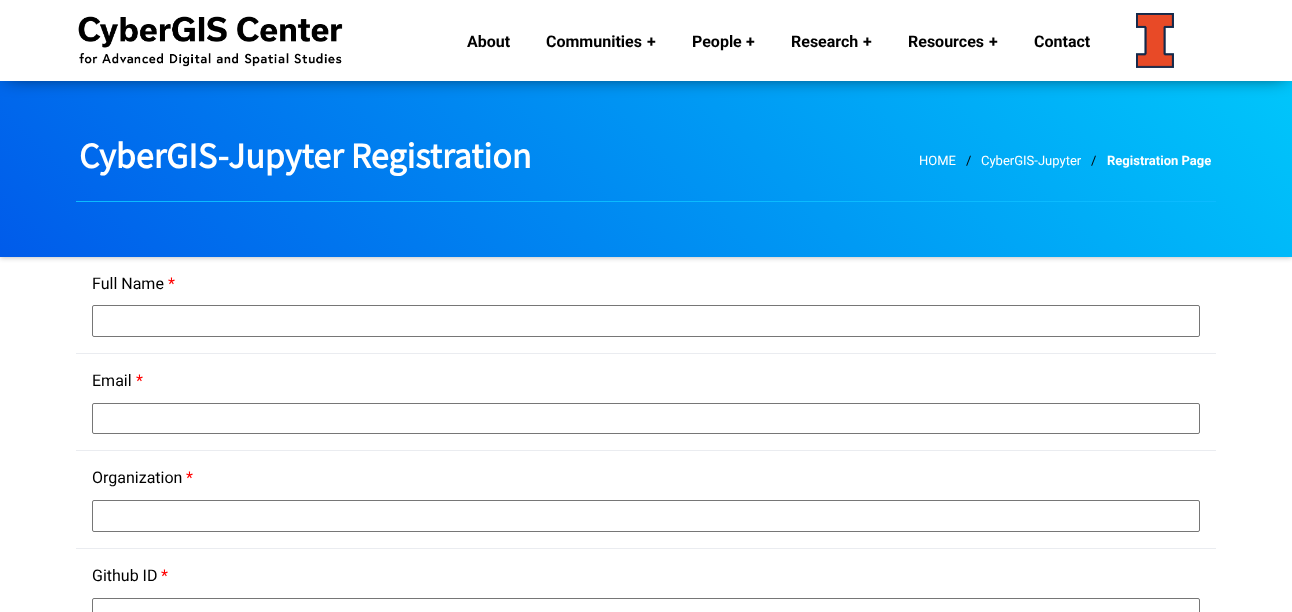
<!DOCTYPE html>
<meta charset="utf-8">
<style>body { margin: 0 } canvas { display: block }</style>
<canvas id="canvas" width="1292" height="612"></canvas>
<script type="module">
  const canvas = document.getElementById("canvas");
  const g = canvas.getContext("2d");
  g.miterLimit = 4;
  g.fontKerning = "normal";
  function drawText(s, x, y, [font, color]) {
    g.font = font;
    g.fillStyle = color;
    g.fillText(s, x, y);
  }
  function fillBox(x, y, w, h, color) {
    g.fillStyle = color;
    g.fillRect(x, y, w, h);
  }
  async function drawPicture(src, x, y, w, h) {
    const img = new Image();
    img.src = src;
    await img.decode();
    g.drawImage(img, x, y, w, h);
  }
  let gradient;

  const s1 = ["bold 16px Roboto", "#000000"];
  const s2 = ["bold 36px Source Sans Pro", "#FFFFFF"];
  const s3 = ["13px Roboto", "#FFFFFF"];
  const s4 = ["13px Roboto", "#000000"];
  const s5 = ["bold 13px Roboto", "#FFFFFF"];
  const s6 = ["16px Roboto", "#000000"];
  const s7 = ["16px Roboto", "#FF0000"];

  fillBox(0, 0, 1292, 612, "#FFFFFF");
  g.fillStyle = "rgba(0, 0, 0, 0.23)";
  g.filter = "blur(2.5px)";
  g.beginPath();
  g.rect(0, 82, 1292, 176);
  g.fill();
  g.filter = "none";
  gradient = g.createLinearGradient(279, 536, 1013, -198);
  gradient.addColorStop(0, "#005BEA");
  gradient.addColorStop(1, "#00C6FB");
  g.fillStyle = gradient;
  g.fillRect(0, 81, 1292, 176);
  g.fillStyle = "#000000";
  g.filter = "blur(10px)";
  g.beginPath();
  g.rect(7, 7, 1278, 67);
  g.fill();
  g.filter = "none";
  fillBox(0, 0, 1292, 81, "#FFFFFF");
  await drawPicture("pic1.png", 78, 16, 265, 51);
  drawText("About", 467, 47, s1);
  drawText("Communities", 546, 47, s1);
  drawText("+", 647, 47, s1);
  drawText("People", 692, 47, s1);
  drawText("+", 746, 47, s1);
  drawText("Research", 791, 47, s1);
  drawText("+", 863, 47, s1);
  drawText("Resources", 908, 47, s1);
  drawText("+", 989, 47, s1);
  drawText("Contact", 1034, 47, s1);
  await drawPicture("pic2.png", 1136, 13, 38, 55);
  fillBox(76, 201, 1140, 1, "#0BBBFF");
  drawText("CyberGIS-Jupyter Registration", 79, 168, s2);
  drawText("HOME", 919, 165, s3);
  drawText("/", 966, 165, s4);
  drawText("CyberGIS-Jupyter", 981, 165, s3);
  drawText("/", 1091, 165, s4);
  drawText("Registration Page", 1107, 165, s5);
  drawText("Full Name", 92, 289, s6);
  drawText("*", 168, 289, s7);
  g.beginPath();
  g.roundRect(92.5, 305.5, 1107, 31, 1.5);
  g.strokeStyle = "#767676";
  g.stroke();
  fillBox(76, 353, 1140, 1, "#EAECF0");
  drawText("Email", 92, 386, s6);
  drawText("*", 136, 386, s7);
  g.beginPath();
  g.roundRect(92.5, 403.5, 1107, 30, 1.5);
  g.stroke();
  fillBox(76, 450, 1140, 1, "#EAECF0");
  drawText("Organization", 92, 483, s6);
  drawText("*", 186, 483, s7);
  g.beginPath();
  g.roundRect(92.5, 500.5, 1107, 31, 1.5);
  g.stroke();
  fillBox(76, 548, 1140, 1, "#EAECF0");
  drawText("Github ID", 92, 581, s6);
  drawText("*", 161, 581, s7);
  g.beginPath();
  g.roundRect(92.5, 598.5, 1107, 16, 1.5);
  g.stroke();
</script>
